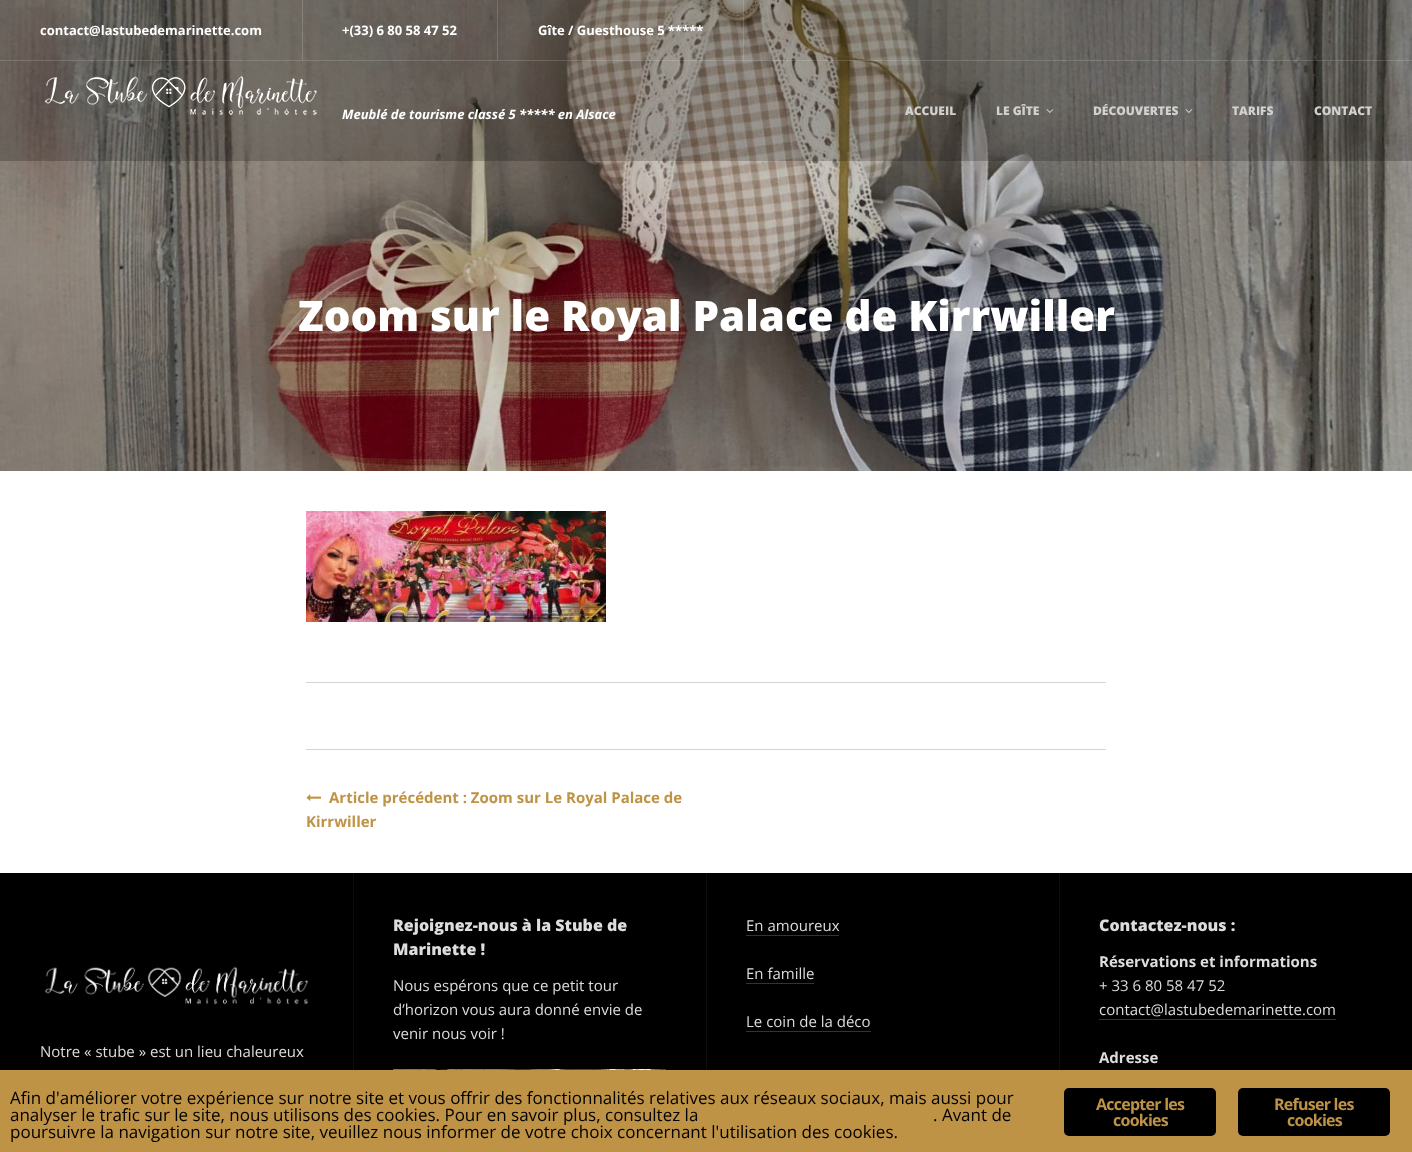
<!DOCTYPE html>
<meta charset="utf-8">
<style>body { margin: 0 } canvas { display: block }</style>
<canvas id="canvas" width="1412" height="1152"></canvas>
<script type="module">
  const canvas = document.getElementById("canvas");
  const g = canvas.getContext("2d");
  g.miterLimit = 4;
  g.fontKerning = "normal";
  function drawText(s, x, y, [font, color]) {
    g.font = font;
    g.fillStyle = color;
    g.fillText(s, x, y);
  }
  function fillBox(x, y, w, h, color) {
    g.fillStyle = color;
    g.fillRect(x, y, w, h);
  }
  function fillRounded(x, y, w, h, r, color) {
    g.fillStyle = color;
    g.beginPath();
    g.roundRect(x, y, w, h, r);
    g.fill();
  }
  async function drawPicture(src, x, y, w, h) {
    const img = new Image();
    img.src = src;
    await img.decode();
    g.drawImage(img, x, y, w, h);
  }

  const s1 = ["bold 13px Open Sans", "#FFFFFF"];
  const s2 = ["italic bold 13px Open Sans", "#FFFFFF"];
  const s3 = ["800 12px Open Sans", "#D2D1CF"];
  const s4 = ["800 42px Open Sans", "#FFFFFF"];
  const s5 = ["bold 15px Open Sans", "#BF9346"];
  const s6 = ["800 16px Open Sans", "#DDDDDD"];
  const s7 = ["15px Open Sans", "#DDDDDD"];
  const s8 = ["bold 15px Open Sans", "#DDDDDD"];
  const s9 = ["17px Open Sans", "#000000"];
  const s10 = ["bold 16px Open Sans", "#BF9346"];

  fillBox(0, 0, 1412, 1152, "#FFFFFF");
  await drawPicture("pic1.png", 0, 0, 1412, 471);
  fillBox(0, 0, 1412, 61, "rgba(0, 0, 0, 0.2)");
  fillBox(0, 60, 1412, 1, "rgba(255, 255, 255, 0.15)");
  fillBox(302, 0, 1, 60, "rgba(255, 255, 255, 0.15)");
  drawText("contact@lastubedemarinette.com", 40, 35, s1);
  fillBox(497, 0, 1, 60, "rgba(255, 255, 255, 0.15)");
  drawText("+(33) 6 80 58 47 52", 342, 35, s1);
  fillBox(743, 0, 1, 60, "rgba(255, 255, 255, 0.15)");
  drawText("Gîte / Guesthouse 5 *****", 538, 35, s1);
  fillBox(0, 61, 1412, 100, "rgba(0, 0, 0, 0.2)");
  await drawPicture("pic2.png", 45, 76, 272, 39);
  drawText("Meublé de tourisme classé 5 ***** en Alsace", 342, 119, s2);
  drawText("ACCUEIL", 905, 115, s3);
  drawText("LE GÎTE", 996, 115, s3);
  await drawPicture("pic3.png", 1046, 109, 8, 4);
  drawText("DÉCOUVERTES", 1093, 115, s3);
  await drawPicture("pic4.png", 1185, 109, 8, 4);
  drawText("TARIFS", 1232, 115, s3);
  drawText("CONTACT", 1314, 115, s3);
  drawText("Zoom sur le Royal Palace de Kirrwiller", 298, 331, s4);
  await drawPicture("pic5.png", 306, 511, 300, 111);
  fillBox(306, 682, 800, 1, "#D4D4D4");
  fillBox(306, 749, 800, 1, "#D4D4D4");
  await drawPicture("pic6.png", 306, 794, 15, 7);
  drawText("Article précédent : Zoom sur Le Royal Palace de", 329, 803, s5);
  drawText("Kirrwiller", 306, 827, s5);
  fillBox(0, 873, 1412, 197, "#000000");
  fillBox(353, 873, 1, 197, "#0D0D0D");
  drawText("Rejoignez-nous à la Stube de", 393, 931, s6);
  drawText("Marinette !", 393, 955, s6);
  drawText("Nous espérons que ce petit tour", 393, 991, s7);
  drawText("d’horizon vous aura donné envie de", 393, 1015, s7);
  drawText("venir nous voir !", 393, 1039, s7);
  await drawPicture("pic7.png", 393, 1069, 273, 1);
  fillBox(706, 873, 1, 197, "#0D0D0D");
  drawText("En amoureux", 746, 931, s7);
  fillBox(746, 935, 93, 1, "#333333");
  drawText("En famille", 746, 979, s7);
  fillBox(746, 983, 68, 1, "#333333");
  drawText("Le coin de la déco", 746, 1027, s7);
  fillBox(746, 1031, 125, 1, "#333333");
  fillBox(1059, 873, 1, 197, "#0D0D0D");
  drawText("Contactez-nous :", 1099, 931, s6);
  drawText("Réservations et informations", 1099, 967, s8);
  drawText("+ 33 6 80 58 47 52", 1099, 991, s7);
  drawText("contact@lastubedemarinette.com", 1099, 1015, s7);
  fillBox(1099, 1019, 237, 1, "#333333");
  drawText("Adresse", 1099, 1063, s8);
  await drawPicture("pic8.png", 44, 966, 265, 39);
  drawText("Notre « stube » est un lieu chaleureux", 40, 1057, s7);
  fillBox(0, 1070, 1412, 82, "#BF9346");
  drawText("Afin d'améliorer votre expérience sur notre site et vous offrir des fonctionnalités relatives aux réseaux sociaux, mais aussi pour", 10, 1104, s9);
  drawText("analyser le trafic sur le site, nous utilisons des cookies. Pour en savoir plus, consultez la", 10, 1121, s9);
  drawText(". Avant de", 933, 1121, s9);
  drawText("poursuivre la navigation sur notre site, veuillez nous informer de votre choix concernant l'utilisation des cookies.", 10, 1138, s9);
  fillRounded(1064, 1088, 152, 48, 5, "#000000");
  g.letterSpacing = "-0.75px";
  drawText("Accepter les", 1096, 1110, s10);
  drawText("cookies", 1113, 1126, s10);
  fillRounded(1238, 1088, 152, 48, 5, "#000000");
  drawText("Refuser les", 1274, 1110, s10);
  drawText("cookies", 1287, 1126, s10);
</script>
